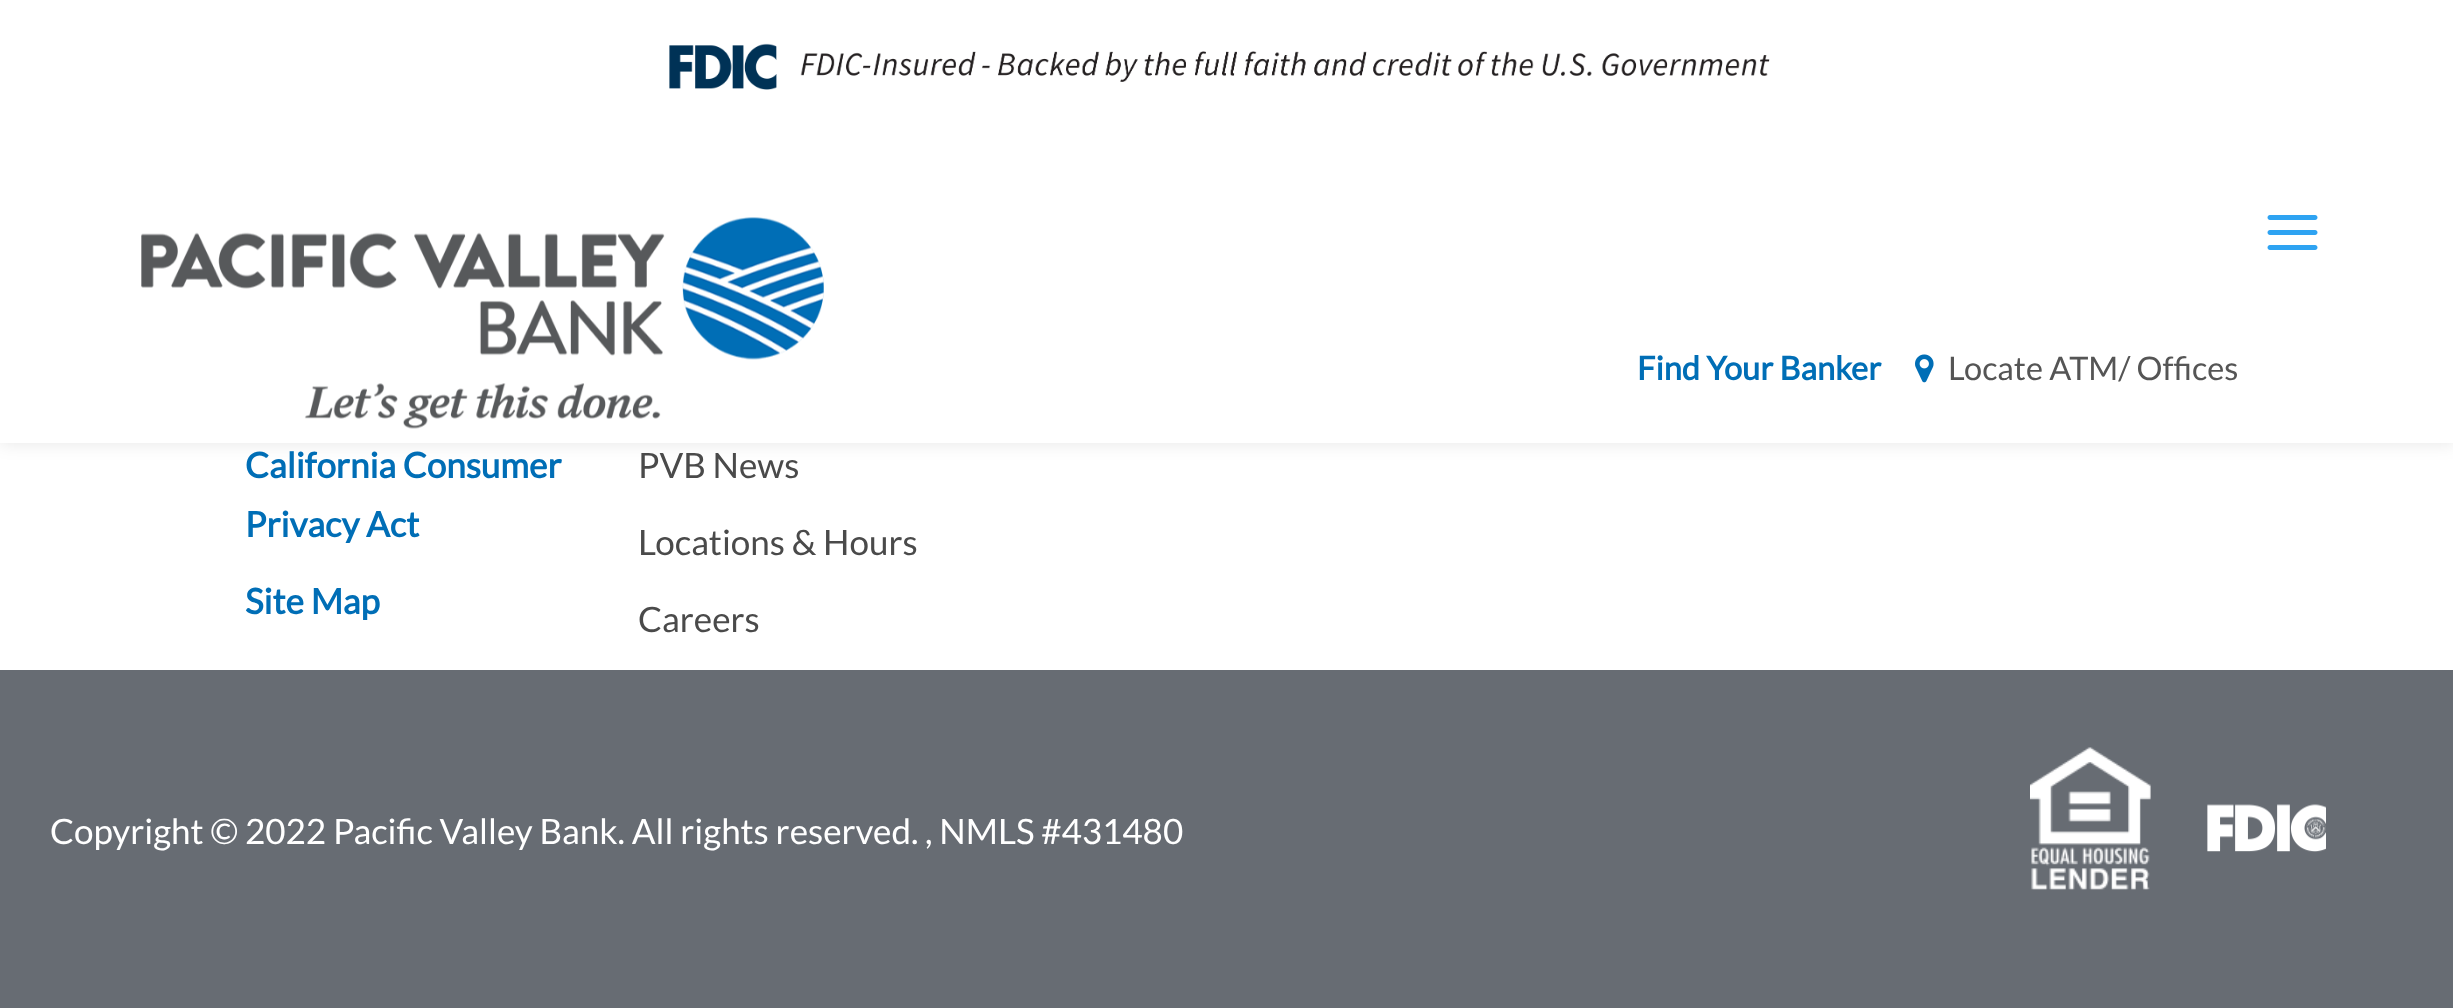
<!DOCTYPE html>
<meta charset="utf-8">
<style>body { margin: 0 } canvas { display: block }</style>
<canvas id="canvas" width="2453" height="1008"></canvas>
<script type="module">
  const canvas = document.getElementById("canvas");
  const g = canvas.getContext("2d");
  g.miterLimit = 4;
  g.fontKerning = "normal";
  function drawText(s, x, y, [font, color]) {
    g.font = font;
    g.fillStyle = color;
    g.fillText(s, x, y);
  }
  function fillBox(x, y, w, h, color) {
    g.fillStyle = color;
    g.fillRect(x, y, w, h);
  }
  async function drawPicture(src, x, y, w, h) {
    const img = new Image();
    img.src = src;
    await img.decode();
    g.drawImage(img, x, y, w, h);
  }

  const s1 = ["bold 32.5px Lato", "#006EB6"];
  const s2 = ["32.5px Lato", "#555555"];
  const s3 = ["bold 35px Lato", "#006EB6"];
  const s4 = ["35px Lato", "#4A4A4A"];
  const s5 = ["35px Lato", "#FFFFFF"];

  fillBox(0, 0, 2453, 1008, "#FFFFFF");
  g.fillStyle = "rgba(0, 0, 0, 0.1)";
  g.filter = "blur(9px)";
  g.beginPath();
  g.rect(0, 0, 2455, 443);
  g.fill();
  g.filter = "none";
  fillBox(0, 0, 2453, 443, "#FFFFFF");
  await drawPicture("pic1.png", 669, 43, 1101, 47);
  await drawPicture("pic2.png", 141, 217, 683, 212);
  await drawPicture("pic3.png", 2267, 215, 51, 35);
  drawText("Find Your Banker", 1637, 380, s1);
  await drawPicture("pic4.png", 1915, 354, 19, 29);
  drawText("Locate ATM/ Offices", 1948, 380, s2);
  drawText("California Consumer", 245, 478, s3);
  drawText("Privacy Act", 245, 537, s3);
  drawText("Site Map", 245, 614, s3);
  drawText("PVB News", 638, 478, s4);
  drawText("Locations & Hours", 638, 555, s4);
  drawText("Careers", 638, 632, s4);
  fillBox(0, 670, 2453, 338, "#676C73");
  drawText("Copyright © 2022 Pacific Valley Bank. All rights reserved. , NMLS #431480", 50, 844, s5);
  await drawPicture("pic5.png", 2030, 747, 121, 143);
  await drawPicture("pic6.png", 2207, 804, 119, 48);
</script>
